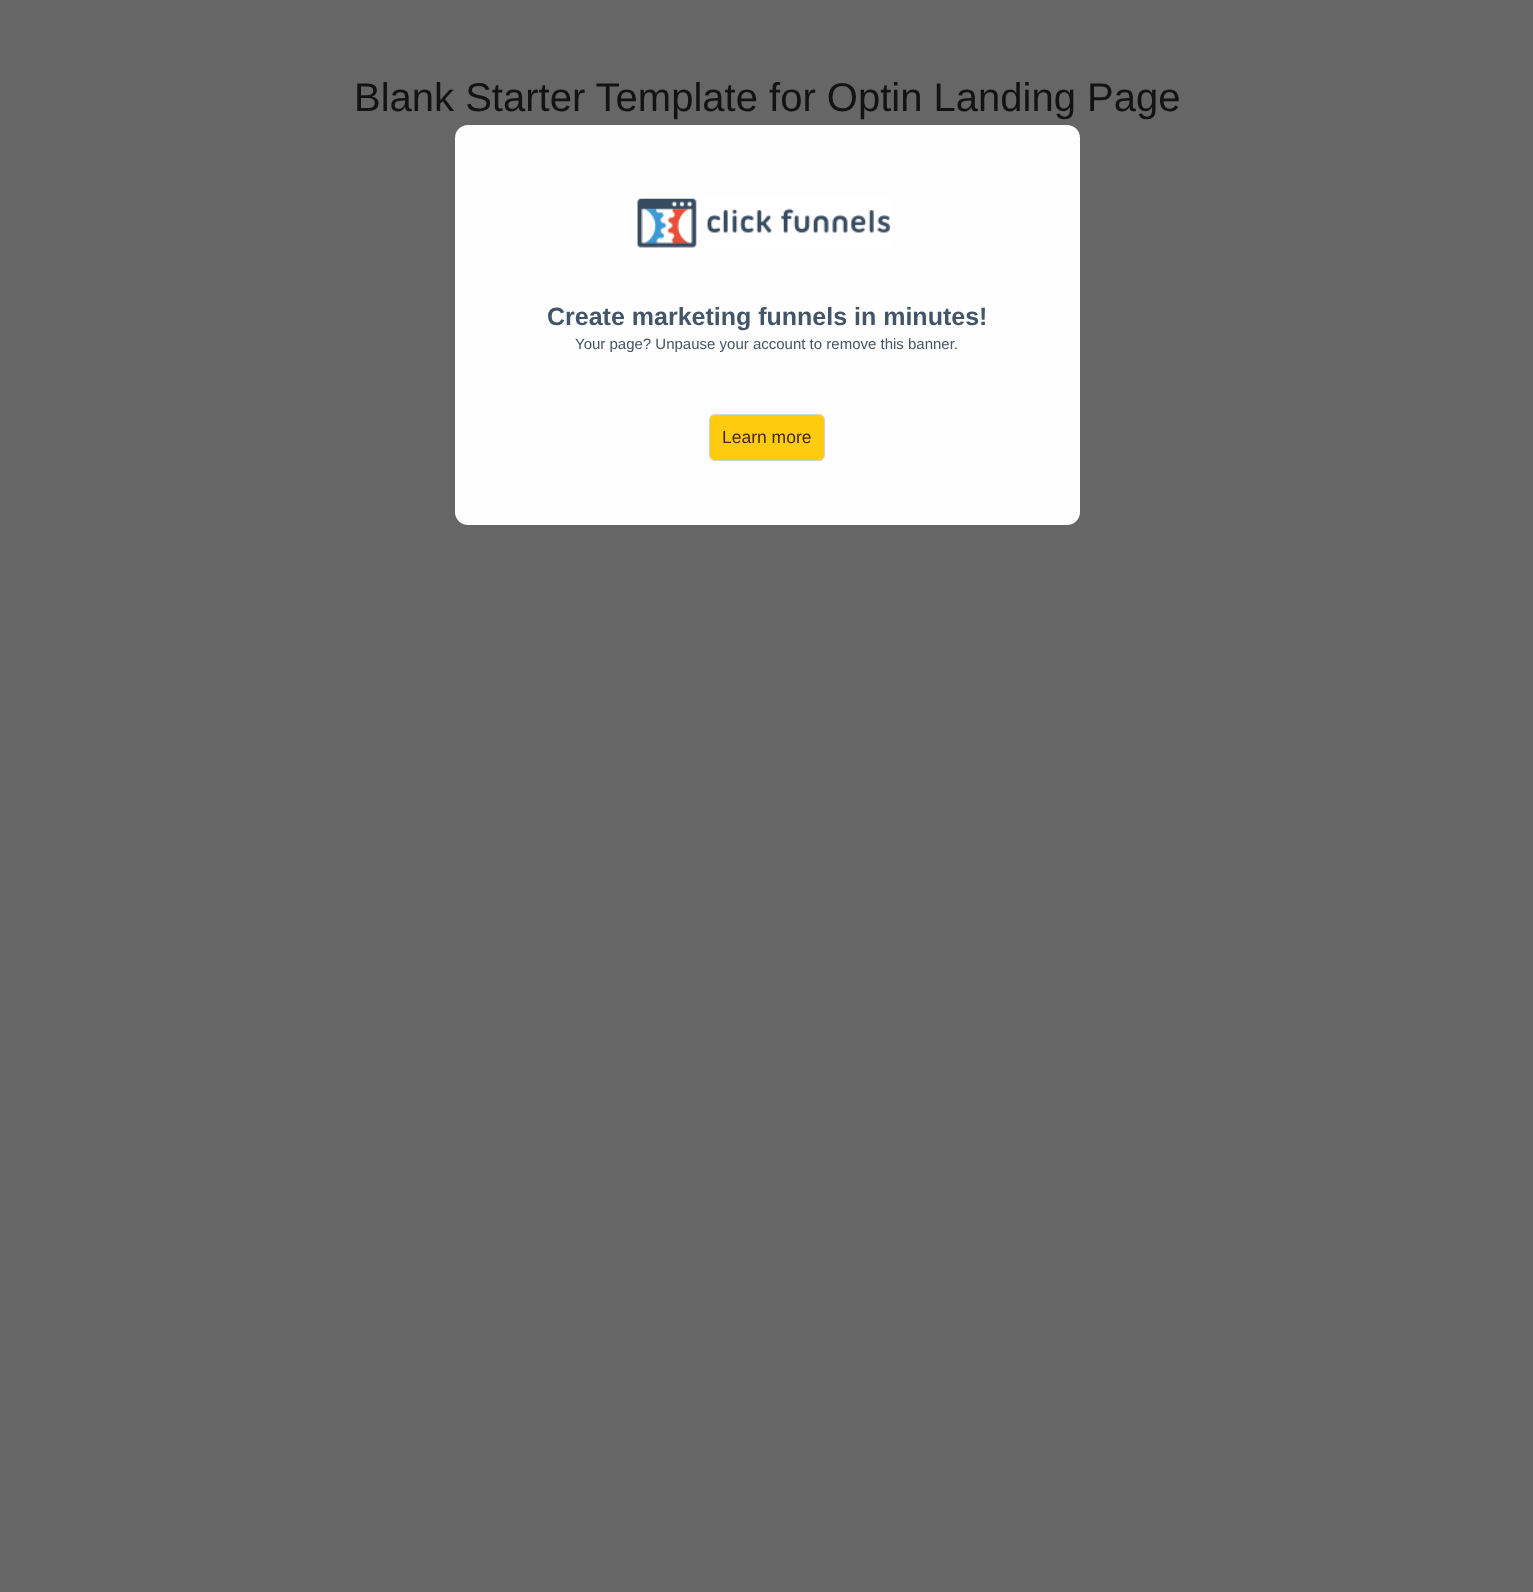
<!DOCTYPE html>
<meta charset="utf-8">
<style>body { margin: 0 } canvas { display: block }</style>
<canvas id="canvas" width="1533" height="1592"></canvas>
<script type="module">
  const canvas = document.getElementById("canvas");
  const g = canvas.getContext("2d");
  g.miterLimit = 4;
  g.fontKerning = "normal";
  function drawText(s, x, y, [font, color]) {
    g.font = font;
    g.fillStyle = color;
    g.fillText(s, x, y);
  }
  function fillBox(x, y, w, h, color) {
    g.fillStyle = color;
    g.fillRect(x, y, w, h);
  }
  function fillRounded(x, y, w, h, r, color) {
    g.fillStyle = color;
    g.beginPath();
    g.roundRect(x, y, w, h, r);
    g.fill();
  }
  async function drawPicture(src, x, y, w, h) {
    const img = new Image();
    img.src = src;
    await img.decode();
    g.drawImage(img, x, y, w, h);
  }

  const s1 = ["40px Liberation Sans", "#131313"];
  const s2 = ["bold 25px Liberation Sans", "#435569"];
  const s3 = ["15px Liberation Sans", "#435569"];
  const s4 = ["17.5px Liberation Sans", "#432811"];

  fillBox(0, 0, 1533, 1592, "#666666");
  drawText("Blank Starter Template for Optin Landing Page", 354, 111, s1);
  fillRounded(455, 125, 625, 400, 13, "#FEFEFE");
  await drawPicture("pic1.png", 637, 198, 254, 50);
  drawText("Create marketing funnels in minutes!", 547, 325, s2);
  drawText("Your page? Unpause your account to remove this banner.", 575, 349, s3);
  g.fillStyle = "#FFCB0E";
  g.beginPath();
  g.roundRect(709.5, 414.5, 115, 46, 5.5);
  g.fill();
  g.strokeStyle = "#D4D4D4";
  g.stroke();
  drawText("Learn more", 722, 443, s4);
</script>
